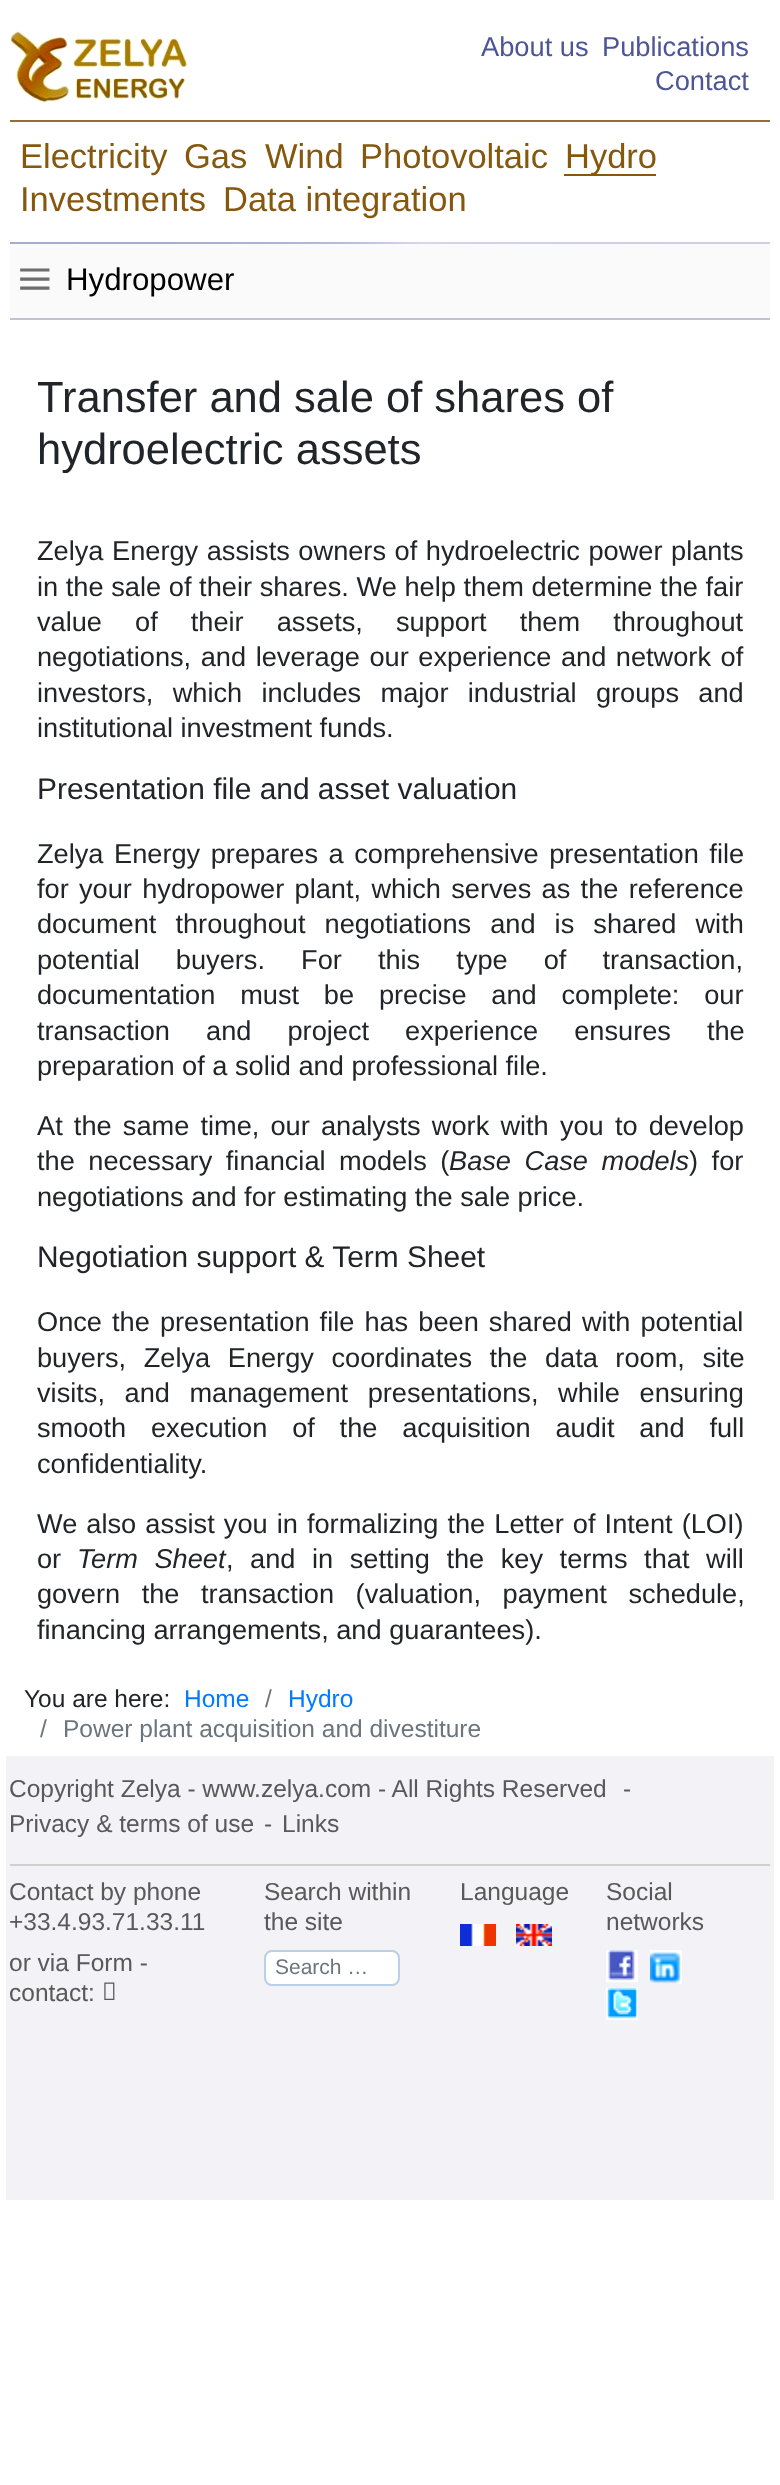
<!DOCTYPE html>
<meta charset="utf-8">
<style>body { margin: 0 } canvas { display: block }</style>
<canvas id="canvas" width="780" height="2485"></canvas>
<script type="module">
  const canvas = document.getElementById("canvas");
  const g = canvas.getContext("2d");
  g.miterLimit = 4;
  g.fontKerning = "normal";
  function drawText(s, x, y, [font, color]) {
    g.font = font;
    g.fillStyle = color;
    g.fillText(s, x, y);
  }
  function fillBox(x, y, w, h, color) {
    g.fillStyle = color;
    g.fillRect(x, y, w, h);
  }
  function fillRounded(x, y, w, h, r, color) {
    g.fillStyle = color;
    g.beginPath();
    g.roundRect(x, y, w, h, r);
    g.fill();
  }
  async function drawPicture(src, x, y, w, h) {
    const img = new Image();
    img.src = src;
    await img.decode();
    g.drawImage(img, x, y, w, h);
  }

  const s1 = ["27.25px Liberation Sans", "#4C5696"];
  const s2 = ["34.5px Liberation Sans", "#85580D"];
  const s3 = ["63px Liberation Serif", "#6E6E6E"];
  const s4 = ["31.25px Liberation Sans", "#000000"];
  const s5 = ["43.5px Liberation Sans", "#212529"];
  const s6 = ["27.2px Liberation Sans", "#212529"];
  const s7 = ["29.9px Liberation Sans", "#212529"];
  const s8 = ["italic 27.2px Liberation Sans", "#212529"];
  const s9 = ["24.5px Liberation Sans", "#212529"];
  const s10 = ["24.5px Liberation Sans", "#007BFF"];
  const s11 = ["24.5px Liberation Sans", "#6C757D"];
  const s12 = ["24.5px Liberation Sans", "#595959"];
  const s13 = ["21px Liberation Sans", "#6C757D"];

  fillBox(0, 0, 780, 2485, "#FFFFFF");
  await drawPicture("pic1.png", 9, 31, 178, 73);
  fillBox(10, 120, 760, 2, "#956D35");
  await drawPicture("pic2.png", 10, 242, 760, 2);
  drawText("About us", 481, 56, s1);
  drawText("Publications", 602, 56, s1);
  drawText("Contact", 655, 90, s1);
  drawText("Electricity", 20, 168, s2);
  drawText("Gas", 184, 168, s2);
  drawText("Wind", 265, 168, s2);
  drawText("Photovoltaic", 360, 168, s2);
  fillBox(564, 174, 92, 2, "#85580D");
  drawText("Hydro", 565, 168, s2);
  drawText("Investments", 20, 211, s2);
  drawText("Data integration", 223, 211, s2);
  fillBox(10, 244, 760, 74, "#FAFAFA");
  g.fillStyle = "rgba(255, 255, 255, 0.1)";
  g.beginPath();
  g.ellipse(394, 279, 376, 25, 0, 0, Math.PI * 2);
  g.fill();
  drawText("≡", 17, 300, s3);
  fillBox(10, 318, 760, 2, "#C2BFD9");
  drawText("Hydropower", 66, 290, s4);
  drawText("Transfer and sale of shares of", 37, 412, s5);
  drawText("hydroelectric assets", 37, 464, s5);
  g.wordSpacing = "1px";
  drawText("Zelya Energy assists owners of hydroelectric power plants", 37, 560, s6);
  g.wordSpacing = "0.1px";
  drawText("in the sale of their shares. We help them determine the fair", 37, 596, s6);
  g.wordSpacing = "25.5px";
  drawText("value of their assets, support them throughout", 37, 631, s6);
  g.wordSpacing = "2px";
  drawText("negotiations, and leverage our experience and network of", 37, 666, s6);
  g.wordSpacing = "11.75px";
  drawText("investors, which includes major industrial groups and", 37, 702, s6);
  g.wordSpacing = "0px";
  drawText("institutional investment funds.", 37, 737, s6);
  drawText("Presentation file and asset valuation", 37, 799, s7);
  g.wordSpacing = "3px";
  drawText("Zelya Energy prepares a comprehensive presentation file", 37, 863, s6);
  g.wordSpacing = "2.75px";
  drawText("for your hydropower plant, which serves as the reference", 37, 898, s6);
  g.wordSpacing = "11.5px";
  drawText("document throughout negotiations and is shared with", 37, 933, s6);
  g.wordSpacing = "28.5px";
  drawText("potential buyers. For this type of transaction,", 37, 969, s6);
  g.wordSpacing = "17.25px";
  drawText("documentation must be precise and complete: our", 37, 1004, s6);
  g.wordSpacing = "28.5px";
  drawText("transaction and project experience ensures the", 37, 1040, s6);
  g.wordSpacing = "0px";
  drawText("preparation of a solid and professional file.", 37, 1075, s6);
  g.wordSpacing = "3.6px";
  drawText("At the same time, our analysts work with you to develop", 37, 1135, s6);
  g.wordSpacing = "6px";
  drawText("the necessary financial models (", 37, 1170, s6);
  drawText("Base Case models", 449, 1170, s8);
  drawText(") for", 689, 1170, s6);
  g.wordSpacing = "0px";
  drawText("negotiations and for estimating the sale price.", 37, 1206, s6);
  drawText("Negotiation support & Term Sheet", 37, 1267, s7);
  g.wordSpacing = "2.5px";
  drawText("Once the presentation file has been shared with potential", 37, 1331, s6);
  g.wordSpacing = "10px";
  drawText("buyers, Zelya Energy coordinates the data room, site", 37, 1367, s6);
  g.wordSpacing = "12px";
  drawText("visits, and management presentations, while ensuring", 37, 1402, s6);
  g.wordSpacing = "17.25px";
  drawText("smooth execution of the acquisition audit and full", 37, 1437, s6);
  g.wordSpacing = "0px";
  drawText("confidentiality.", 37, 1473, s6);
  g.wordSpacing = "1.5px";
  drawText("We also assist you in formalizing the Letter of Intent (LOI)", 37, 1533, s6);
  g.wordSpacing = "0px";
  drawText("or", 37, 1568, s6);
  g.wordSpacing = "9px";
  drawText("Term Sheet", 77, 1568, s8);
  drawText(", and in setting the key terms that will", 226, 1568, s6);
  g.wordSpacing = "14px";
  drawText("govern the transaction (valuation, payment schedule,", 37, 1603, s6);
  g.wordSpacing = "0px";
  drawText("financing arrangements, and guarantees).", 37, 1639, s6);
  drawText("You are here:", 24, 1707, s9);
  drawText("Home", 184, 1707, s10);
  drawText("/", 265, 1707, s11);
  drawText("Hydro", 288, 1707, s10);
  drawText("/", 40, 1737, s11);
  drawText("Power plant acquisition and divestiture", 63, 1737, s11);
  fillBox(6, 1756, 768, 444, "#F2F2F7");
  fillBox(10, 1864, 760, 2, "#D0CFCF");
  drawText("Copyright Zelya - www.zelya.com - All Rights Reserved", 9, 1797, s12);
  drawText("-", 623, 1797, s12);
  drawText("Privacy & terms of use", 9, 1832, s12);
  drawText("-", 264, 1832, s12);
  drawText("Links", 282, 1832, s12);
  drawText("Contact by phone", 9, 1900, s12);
  drawText("+33.4.93.71.33.11", 9, 1930, s12);
  drawText("or via Form -", 9, 1971, s12);
  drawText("contact:", 9, 2001, s12);
  await drawPicture("pic3.png", 104, 1982, 11, 18);
  drawText("Search within", 264, 1900, s12);
  drawText("the site", 264, 1930, s12);
  fillRounded(266, 1952, 132, 32, 6, "#FFFFFF");
  g.beginPath();
  g.roundRect(265, 1951, 134, 34, 7);
  g.strokeStyle = "rgba(88, 149, 204, 0.37)";
  g.lineWidth = 2;
  g.stroke();
  drawText("Search …", 275, 1974, s13);
  drawText("Language", 460, 1900, s12);
  await drawPicture("pic4.png", 460, 1924, 36, 22);
  await drawPicture("pic5.png", 516, 1924, 36, 22);
  drawText("Social", 606, 1900, s12);
  drawText("networks", 606, 1930, s12);
  await drawPicture("pic6.png", 606, 1950, 32, 32);
  await drawPicture("pic7.png", 650, 1950, 32, 34);
  await drawPicture("pic8.png", 606, 1988, 32, 32);
</script>
